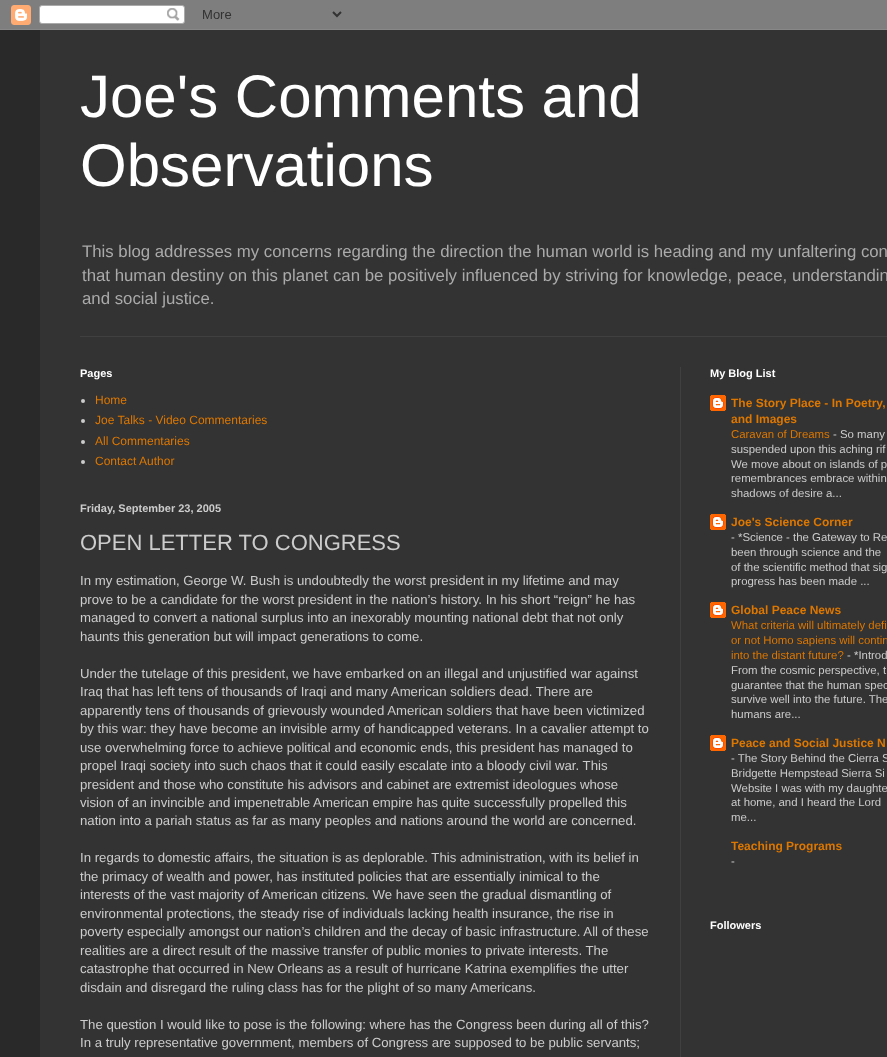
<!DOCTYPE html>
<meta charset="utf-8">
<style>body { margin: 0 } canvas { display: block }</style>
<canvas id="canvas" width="887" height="1057"></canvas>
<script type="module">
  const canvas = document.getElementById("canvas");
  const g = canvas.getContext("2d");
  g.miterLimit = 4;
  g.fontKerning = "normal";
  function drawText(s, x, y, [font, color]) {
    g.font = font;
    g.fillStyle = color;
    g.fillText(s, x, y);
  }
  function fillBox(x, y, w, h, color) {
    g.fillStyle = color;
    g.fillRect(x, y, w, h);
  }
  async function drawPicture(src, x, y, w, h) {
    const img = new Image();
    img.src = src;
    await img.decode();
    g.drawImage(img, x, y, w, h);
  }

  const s1 = ["60px Liberation Sans", "#FFFFFF"];
  const s2 = ["16.8px Liberation Sans", "#AAAAAA"];
  const s3 = ["bold 11px Liberation Sans", "#FFFFFF"];
  const s4 = ["12px Liberation Sans", "#DD7700"];
  const s5 = ["bold 11px Liberation Sans", "#CCCCCC"];
  const s6 = ["22px Liberation Sans", "#CCCCCC"];
  const s7 = ["13.2px Liberation Sans", "#CCCCCC"];
  const s8 = ["bold 12px Liberation Sans", "#DD7700"];
  const s9 = ["11.4px Liberation Sans", "#DD7700"];
  const s10 = ["11.4px Liberation Sans", "#CCCCCC"];

  fillBox(0, 0, 887, 1057, "#292929");
  await drawPicture("pic1.png", 0, 0, 887, 30);
  fillBox(40, 30, 847, 1027, "#333333");
  drawText("Joe's Comments and", 80, 117, s1);
  drawText("Observations", 80, 186, s1);
  drawText("This blog addresses my concerns regarding the direction the human world is heading and my unfaltering con", 82, 257, s2);
  drawText("that human destiny on this planet can be positively influenced by striving for knowledge, peace, understandin", 82, 281, s2);
  drawText("and social justice.", 82, 304, s2);
  fillBox(80, 336, 807, 1, "#404040");
  fillBox(680, 367, 1, 690, "#404040");
  drawText("Pages", 80, 377, s3);
  g.fillStyle = "#CCCCCC";
  g.beginPath();
  g.arc(83, 401, 2, 0, Math.PI * 2);
  g.fill();
  drawText("Home", 95, 404, s4);
  g.fillStyle = "#CCCCCC";
  g.beginPath();
  g.arc(83, 421, 2, 0, Math.PI * 2);
  g.fill();
  drawText("Joe Talks - Video Commentaries", 95, 424, s4);
  g.fillStyle = "#CCCCCC";
  g.beginPath();
  g.arc(83, 442, 2, 0, Math.PI * 2);
  g.fill();
  drawText("All Commentaries", 95, 445, s4);
  g.fillStyle = "#CCCCCC";
  g.beginPath();
  g.arc(83, 462, 2, 0, Math.PI * 2);
  g.fill();
  drawText("Contact Author", 95, 465, s4);
  drawText("Friday, September 23, 2005", 80, 512, s5);
  drawText("OPEN LETTER TO CONGRESS", 80, 550, s6);
  drawText("In my estimation, George W. Bush is undoubtedly the worst president in my lifetime and may", 80, 585, s7);
  drawText("prove to be a candidate for the worst president in the nation’s history. In his short “reign” he has", 80, 604, s7);
  drawText("managed to convert a national surplus into an inexorably mounting national debt that not only", 80, 622, s7);
  drawText("haunts this generation but will impact generations to come.", 80, 641, s7);
  drawText("Under the tutelage of this president, we have embarked on an illegal and unjustified war against", 80, 678, s7);
  drawText("Iraq that has left tens of thousands of Iraqi and many American soldiers dead. There are", 80, 696, s7);
  drawText("apparently tens of thousands of grievously wounded American soldiers that have been victimized", 80, 715, s7);
  drawText("by this war: they have become an invisible army of handicapped veterans. In a cavalier attempt to", 80, 733, s7);
  drawText("use overwhelming force to achieve political and economic ends, this president has managed to", 80, 752, s7);
  drawText("propel Iraqi society into such chaos that it could easily escalate into a bloody civil war. This", 80, 770, s7);
  drawText("president and those who constitute his advisors and cabinet are extremist ideologues whose", 80, 789, s7);
  drawText("vision of an invincible and impenetrable American empire has quite successfully propelled this", 80, 807, s7);
  drawText("nation into a pariah status as far as many peoples and nations around the world are concerned.", 80, 825, s7);
  drawText("In regards to domestic affairs, the situation is as deplorable. This administration, with its belief in", 80, 862, s7);
  drawText("the primacy of wealth and power, has instituted policies that are essentially inimical to the", 80, 881, s7);
  drawText("interests of the vast majority of American citizens. We have seen the gradual dismantling of", 80, 899, s7);
  drawText("environmental protections, the steady rise of individuals lacking health insurance, the rise in", 80, 918, s7);
  drawText("poverty especially amongst our nation’s children and the decay of basic infrastructure. All of these", 80, 936, s7);
  drawText("realities are a direct result of the massive transfer of public monies to private interests. The", 80, 955, s7);
  drawText("catastrophe that occurred in New Orleans as a result of hurricane Katrina exemplifies the utter", 80, 973, s7);
  drawText("disdain and disregard the ruling class has for the plight of so many Americans.", 80, 992, s7);
  drawText("The question I would like to pose is the following: where has the Congress been during all of this?", 80, 1029, s7);
  drawText("In a truly representative government, members of Congress are supposed to be public servants;", 80, 1047, s7);
  drawText("My Blog List", 710, 377, s3);
  await drawPicture("pic2.png", 710, 395, 16, 16);
  drawText("The Story Place - In Poetry,", 731, 407, s8);
  drawText("and Images", 731, 423, s8);
  drawText("Caravan of Dreams", 731, 438, s9);
  drawText("- So many", 833, 438, s10);
  drawText("suspended upon this aching rif", 731, 453, s10);
  drawText("We move about on islands of p", 731, 468, s10);
  drawText("remembrances embrace within", 731, 482, s10);
  drawText("shadows of desire a...", 731, 497, s10);
  await drawPicture("pic2.png", 710, 514, 16, 16);
  drawText("Joe's Science Corner", 731, 526, s8);
  drawText("- *Science - the Gateway to Re", 731, 541, s10);
  drawText("been through science and the", 731, 556, s10);
  drawText("of the scientific method that sig", 731, 571, s10);
  drawText("progress has been made ...", 731, 585, s10);
  await drawPicture("pic2.png", 710, 602, 16, 16);
  drawText("Global Peace News", 731, 614, s8);
  drawText("What criteria will ultimately defi", 731, 629, s9);
  drawText("or not Homo sapiens will contin", 731, 644, s9);
  drawText("into the distant future?", 731, 659, s9);
  drawText("- *Introd", 847, 659, s10);
  drawText("From the cosmic perspective, t", 731, 674, s10);
  drawText("guarantee that the human spec", 731, 689, s10);
  drawText("survive well into the future. The", 731, 703, s10);
  drawText("humans are...", 731, 718, s10);
  await drawPicture("pic2.png", 710, 735, 16, 16);
  drawText("Peace and Social Justice N", 731, 747, s8);
  drawText("- The Story Behind the Cierra S", 731, 762, s10);
  drawText("Bridgette Hempstead Sierra Si", 731, 777, s10);
  drawText("Website I was with my daughte", 731, 792, s10);
  drawText("at home, and I heard the Lord", 731, 806, s10);
  drawText("me...", 731, 821, s10);
  drawText("Teaching Programs", 731, 850, s8);
  drawText("-", 731, 865, s10);
  drawText("Followers", 710, 929, s3);
</script>
